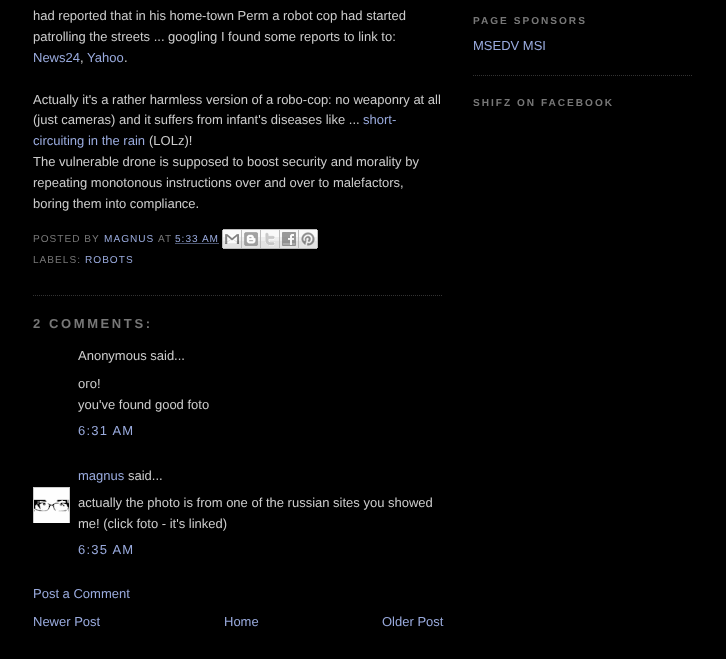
<!DOCTYPE html>
<meta charset="utf-8">
<style>body { margin: 0 } canvas { display: block }</style>
<canvas id="canvas" width="726" height="659"></canvas>
<script type="module">
  const canvas = document.getElementById("canvas");
  const g = canvas.getContext("2d");
  g.miterLimit = 4;
  g.fontKerning = "normal";
  function drawText(s, x, y, [font, color]) {
    g.font = font;
    g.fillStyle = color;
    g.fillText(s, x, y);
  }
  function fillBox(x, y, w, h, color) {
    g.fillStyle = color;
    g.fillRect(x, y, w, h);
  }
  async function drawPicture(src, x, y, w, h) {
    const img = new Image();
    img.src = src;
    await img.decode();
    g.drawImage(img, x, y, w, h);
  }

  const s1 = ["13px Liberation Sans", "#CCCCCC"];
  const s2 = ["13px Liberation Sans", "#99AADD"];
  const s3 = ["10.1px Liberation Sans", "#777777"];
  const s4 = ["10.1px Liberation Sans", "#99AADD"];
  const s5 = ["bold 13px Liberation Sans", "#777777"];
  const s6 = ["bold 10.1px Liberation Sans", "#777777"];

  fillBox(0, 0, 726, 659, "#000000");
  g.beginPath();
  g.moveTo(33, 295.5);
  g.lineTo(443, 295.5);
  g.strokeStyle = "#333333";
  g.setLineDash([1, 1]);
  g.stroke();
  drawText("had reported that in his home-town Perm a robot cop had started", 33, 20, s1);
  drawText("patrolling the streets ... googling I found some reports to link to:", 33, 41, s1);
  drawText("News24", 33, 62, s2);
  drawText(",", 80, 62, s1);
  drawText("Yahoo", 87, 62, s2);
  drawText(".", 124, 62, s1);
  drawText("Actually it's a rather harmless version of a robo-cop: no weaponry at all", 33, 104, s1);
  drawText("(just cameras) and it suffers from infant's diseases like ...", 33, 124, s1);
  drawText("short-", 363, 124, s2);
  drawText("circuiting in the rain", 33, 145, s2);
  drawText("(LOLz)!", 149, 145, s1);
  drawText("The vulnerable drone is supposed to boost security and morality by", 33, 166, s1);
  drawText("repeating monotonous instructions over and over to malefactors,", 33, 187, s1);
  drawText("boring them into compliance.", 33, 208, s1);
  g.letterSpacing = "1px";
  drawText("POSTED BY", 33, 242, s3);
  drawText("MAGNUS", 104, 242, s4);
  drawText("AT", 158, 242, s3);
  drawText("5:33 AM", 175, 242, s4);
  g.beginPath();
  g.moveTo(175.5, 243.5);
  g.lineTo(219.5, 243.5);
  g.strokeStyle = "#99AADD";
  g.stroke();
  await drawPicture("pic1.png", 222, 229, 20, 20);
  await drawPicture("pic2.png", 242, 229, 19, 20);
  await drawPicture("pic3.png", 261, 229, 19, 20);
  await drawPicture("pic4.png", 280, 229, 19, 20);
  await drawPicture("pic5.png", 299, 229, 19, 20);
  drawText("LABELS:", 33, 263, s3);
  drawText("ROBOTS", 85, 263, s4);
  g.letterSpacing = "2.6px";
  drawText("2 COMMENTS:", 33, 328, s5);
  g.letterSpacing = "0px";
  drawText("Anonymous said...", 78, 360, s1);
  drawText("ого!", 78, 388, s1);
  drawText("you've found good foto", 78, 409, s1);
  g.letterSpacing = "1.25px";
  drawText("6:31 AM", 78, 435, s2);
  g.letterSpacing = "0px";
  drawText("magnus", 78, 480, s2);
  drawText("said...", 128, 480, s1);
  g.save();
  g.beginPath();
  g.rect(33, 487, 37, 36);
  g.clip();
  g.strokeStyle = "#CCCCCC";
  g.setLineDash([]);
  g.strokeRect(33.5, 487.5, 36, 36);
  g.restore();
  await drawPicture("pic6.png", 34, 488, 35, 35);
  drawText("actually the photo is from one of the russian sites you showed", 78, 507, s1);
  drawText("me! (click foto - it's linked)", 78, 528, s1);
  g.letterSpacing = "1.25px";
  drawText("6:35 AM", 78, 554, s2);
  g.letterSpacing = "0px";
  drawText("Post a Comment", 33, 598, s2);
  drawText("Newer Post", 33, 626, s2);
  drawText("Home", 224, 626, s2);
  drawText("Older Post", 382, 626, s2);
  g.beginPath();
  g.moveTo(473, 75.5);
  g.lineTo(693, 75.5);
  g.strokeStyle = "#333333";
  g.stroke();
  g.letterSpacing = "2px";
  drawText("PAGE SPONSORS", 473, 24, s6);
  g.letterSpacing = "0px";
  drawText("MSEDV MSI", 473, 50, s2);
  g.letterSpacing = "2px";
  drawText("SHIFZ ON FACEBOOK", 473, 106, s6);
</script>
